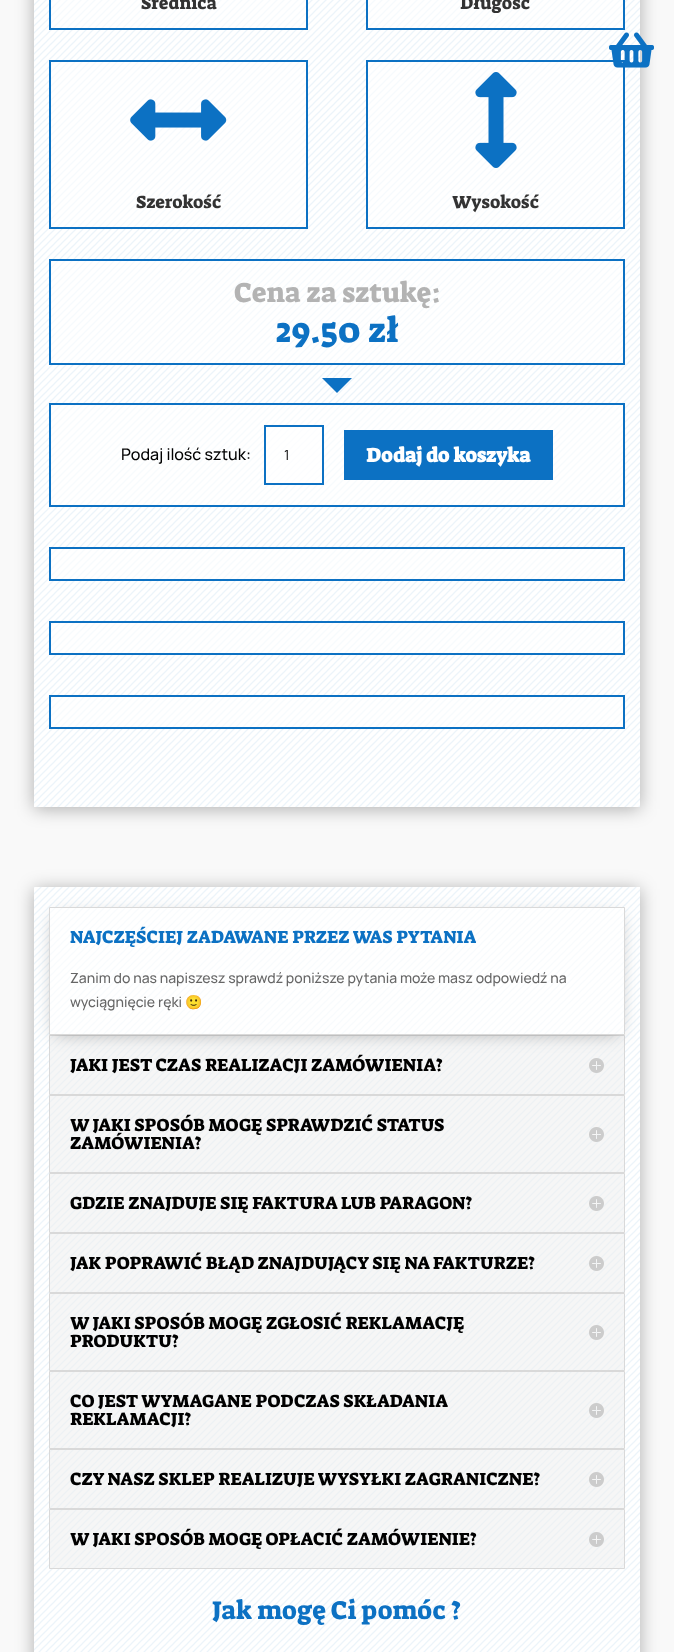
<!DOCTYPE html>
<meta charset="utf-8">
<style>body { margin: 0 } canvas { display: block }</style>
<canvas id="canvas" width="674" height="1652"></canvas>
<script type="module">
  const canvas = document.getElementById("canvas");
  const g = canvas.getContext("2d");
  g.miterLimit = 4;
  g.fontKerning = "normal";
  function drawText(s, x, y, [font, color]) {
    g.font = font;
    g.fillStyle = color;
    g.fillText(s, x, y);
  }
  function fillBox(x, y, w, h, color) {
    g.fillStyle = color;
    g.fillRect(x, y, w, h);
  }
  async function drawPicture(src, x, y, w, h) {
    const img = new Image();
    img.src = src;
    await img.decode();
    g.drawImage(img, x, y, w, h);
  }

  const s1 = ["18px Suez One", "#333333"];
  const s2 = ["28px Suez One", "#B3B3B3"];
  const s3 = ["35px Suez One", "#0C71C3"];
  const s4 = ["200 16px Manrope", "#000000"];
  const s5 = ["200 14px 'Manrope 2'", "#000000"];
  const s6 = ["bold 20px Suez One", "#FFFFFF"];
  const s7 = ["18px Suez One", "#0C71C3"];
  const s8 = ["200 14px Manrope", "#666666"];
  const s9 = ["14px Noto Color Emoji", "#666666"];
  const s10 = ["18px Suez One", "#000000"];
  const s11 = ["26px Suez One", "#0C71C3"];

  fillBox(0, 0, 674, 1652, "#F9F9F9");
  g.fillStyle = "rgba(0, 0, 0, 0.3)";
  g.filter = "blur(9px)";
  g.beginPath();
  g.rect(34, -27, 606, 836);
  g.fill();
  g.filter = "none";
  fillBox(34, 0, 606, 807, "#FFFFFF");
  await drawPicture("pic1.png", 34, 0, 606, 807);
  g.fillStyle = "rgba(255, 255, 255, 0.5)";
  g.beginPath();
  g.rect(50, -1, 257, 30);
  g.fill();
  g.strokeStyle = "#0C71C3";
  g.lineWidth = 2;
  g.stroke();
  drawText("Średnica", 141, 9, s1);
  g.fillStyle = "rgba(255, 255, 255, 0.5)";
  g.beginPath();
  g.rect(367, -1, 257, 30);
  g.fill();
  g.stroke();
  drawText("Długość", 460, 9, s1);
  g.fillStyle = "rgba(255, 255, 255, 0.5)";
  g.beginPath();
  g.rect(50, 61, 257, 167);
  g.fill();
  g.stroke();
  await drawPicture("pic2.png", 130, 99, 97, 42);
  drawText("Szerokość", 136, 208, s1);
  g.fillStyle = "rgba(255, 255, 255, 0.5)";
  g.beginPath();
  g.rect(367, 61, 257, 167);
  g.fill();
  g.stroke();
  await drawPicture("pic3.png", 475, 72, 42, 96);
  drawText("Wysokość", 452, 208, s1);
  g.fillStyle = "rgba(255, 255, 255, 0.5)";
  g.beginPath();
  g.rect(50, 260, 574, 104);
  g.fill();
  g.stroke();
  drawText("Cena za sztukę:", 234, 302, s2);
  drawText("29.50 zł", 276, 342, s3);
  g.beginPath();
  g.moveTo(322, 378);
  g.lineTo(352, 378);
  g.lineTo(337, 393);
  g.closePath();
  g.fill();
  g.fillStyle = "rgba(255, 255, 255, 0.6)";
  g.beginPath();
  g.rect(50, 404, 574, 102);
  g.fill();
  g.stroke();
  drawText("Podaj ilość sztuk:", 121, 460, s4);
  g.fillStyle = "rgba(255, 255, 255, 0.6)";
  g.beginPath();
  g.rect(265, 426, 58, 58);
  g.fill();
  g.stroke();
  drawText("1", 284, 460, s5);
  fillBox(344, 430, 209, 50, "#0C71C3");
  drawText("Dodaj do koszyka", 366, 462, s6);
  g.fillStyle = "rgba(255, 255, 255, 0.6)";
  g.beginPath();
  g.rect(50, 548, 574, 32);
  g.fill();
  g.stroke();
  g.beginPath();
  g.rect(50, 622, 574, 32);
  g.fill();
  g.stroke();
  g.beginPath();
  g.rect(50, 696, 574, 32);
  g.fill();
  g.stroke();
  g.fillStyle = "rgba(0, 0, 0, 0.3)";
  g.filter = "blur(9px)";
  g.beginPath();
  g.rect(34, 889, 606, 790);
  g.fill();
  g.filter = "none";
  fillBox(34, 887, 606, 765, "#FFFFFF");
  await drawPicture("pic4.png", 34, 887, 606, 765);
  g.fillStyle = "rgba(239, 239, 239, 0.55)";
  g.beginPath();
  g.rect(49.5, 1035.5, 575, 59);
  g.fill();
  g.strokeStyle = "#D9D9D9";
  g.lineWidth = 1;
  g.stroke();
  await drawPicture("pic5.png", 589, 1058, 15, 15);
  g.save();
  g.beginPath();
  g.moveTo(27, 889);
  g.lineTo(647, 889);
  g.lineTo(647, 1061);
  g.lineTo(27, 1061);
  g.closePath();
  g.moveTo(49, 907);
  g.lineTo(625, 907);
  g.lineTo(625, 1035);
  g.lineTo(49, 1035);
  g.closePath();
  g.clip("evenodd");
  g.fillStyle = "rgba(0, 0, 0, 0.3)";
  g.filter = "blur(9px)";
  g.beginPath();
  g.rect(55, 917, 564, 116);
  g.fill();
  g.filter = "none";
  g.restore();
  g.fillStyle = "rgba(255, 255, 255, 0.65)";
  g.beginPath();
  g.rect(49.5, 907.5, 575, 127);
  g.fill();
  g.stroke();
  drawText("NAJCZĘŚCIEJ ZADAWANE PRZEZ WAS PYTANIA", 70, 943, s7);
  drawText("Zanim do nas napiszesz sprawdź poniższe pytania może masz odpowiedź na", 70, 983, s8);
  drawText("wyciągnięcie ręki", 70, 1007, s8);
  drawText("🙂", 185, 1007, s9);
  drawText("JAKI JEST CZAS REALIZACJI ZAMÓWIENIA?", 70, 1071, s10);
  g.fillStyle = "rgba(239, 239, 239, 0.55)";
  g.beginPath();
  g.rect(49.5, 1095.5, 575, 77);
  g.fill();
  g.stroke();
  drawText("W JAKI SPOSÓB MOGĘ SPRAWDZIĆ STATUS", 70, 1131, s10);
  await drawPicture("pic6.png", 589, 1127, 15, 15);
  drawText("ZAMÓWIENIA?", 70, 1149, s10);
  g.fillStyle = "rgba(239, 239, 239, 0.55)";
  g.beginPath();
  g.rect(49.5, 1173.5, 575, 59);
  g.fill();
  g.stroke();
  drawText("GDZIE ZNAJDUJE SIĘ FAKTURA LUB PARAGON?", 70, 1209, s10);
  await drawPicture("pic7.png", 589, 1196, 15, 15);
  g.fillStyle = "rgba(239, 239, 239, 0.55)";
  g.beginPath();
  g.rect(49.5, 1233.5, 575, 59);
  g.fill();
  g.stroke();
  drawText("JAK POPRAWIĆ BŁĄD ZNAJDUJĄCY SIĘ NA FAKTURZE?", 70, 1269, s10);
  await drawPicture("pic8.png", 589, 1256, 15, 15);
  g.fillStyle = "rgba(239, 239, 239, 0.55)";
  g.beginPath();
  g.rect(49.5, 1293.5, 575, 77);
  g.fill();
  g.stroke();
  drawText("W JAKI SPOSÓB MOGĘ ZGŁOSIĆ REKLAMACJĘ", 70, 1329, s10);
  await drawPicture("pic9.png", 589, 1325, 15, 15);
  drawText("PRODUKTU?", 70, 1347, s10);
  g.fillStyle = "rgba(239, 239, 239, 0.55)";
  g.beginPath();
  g.rect(49.5, 1371.5, 575, 77);
  g.fill();
  g.stroke();
  drawText("CO JEST WYMAGANE PODCZAS SKŁADANIA", 70, 1407, s10);
  await drawPicture("pic8.png", 589, 1403, 15, 15);
  drawText("REKLAMACJI?", 70, 1425, s10);
  g.fillStyle = "rgba(239, 239, 239, 0.55)";
  g.beginPath();
  g.rect(49.5, 1449.5, 575, 59);
  g.fill();
  g.stroke();
  drawText("CZY NASZ SKLEP REALIZUJE WYSYŁKI ZAGRANICZNE?", 70, 1485, s10);
  await drawPicture("pic9.png", 589, 1472, 15, 15);
  g.fillStyle = "rgba(239, 239, 239, 0.55)";
  g.beginPath();
  g.rect(49.5, 1509.5, 575, 59);
  g.fill();
  g.stroke();
  drawText("W JAKI SPOSÓB MOGĘ OPŁACIĆ ZAMÓWIENIE?", 70, 1545, s10);
  await drawPicture("pic7.png", 589, 1532, 15, 15);
  drawText("Jak mogę Ci pomóc ?", 212, 1619, s11);
  await drawPicture("pic10.png", 609, 32, 45, 36);
</script>
